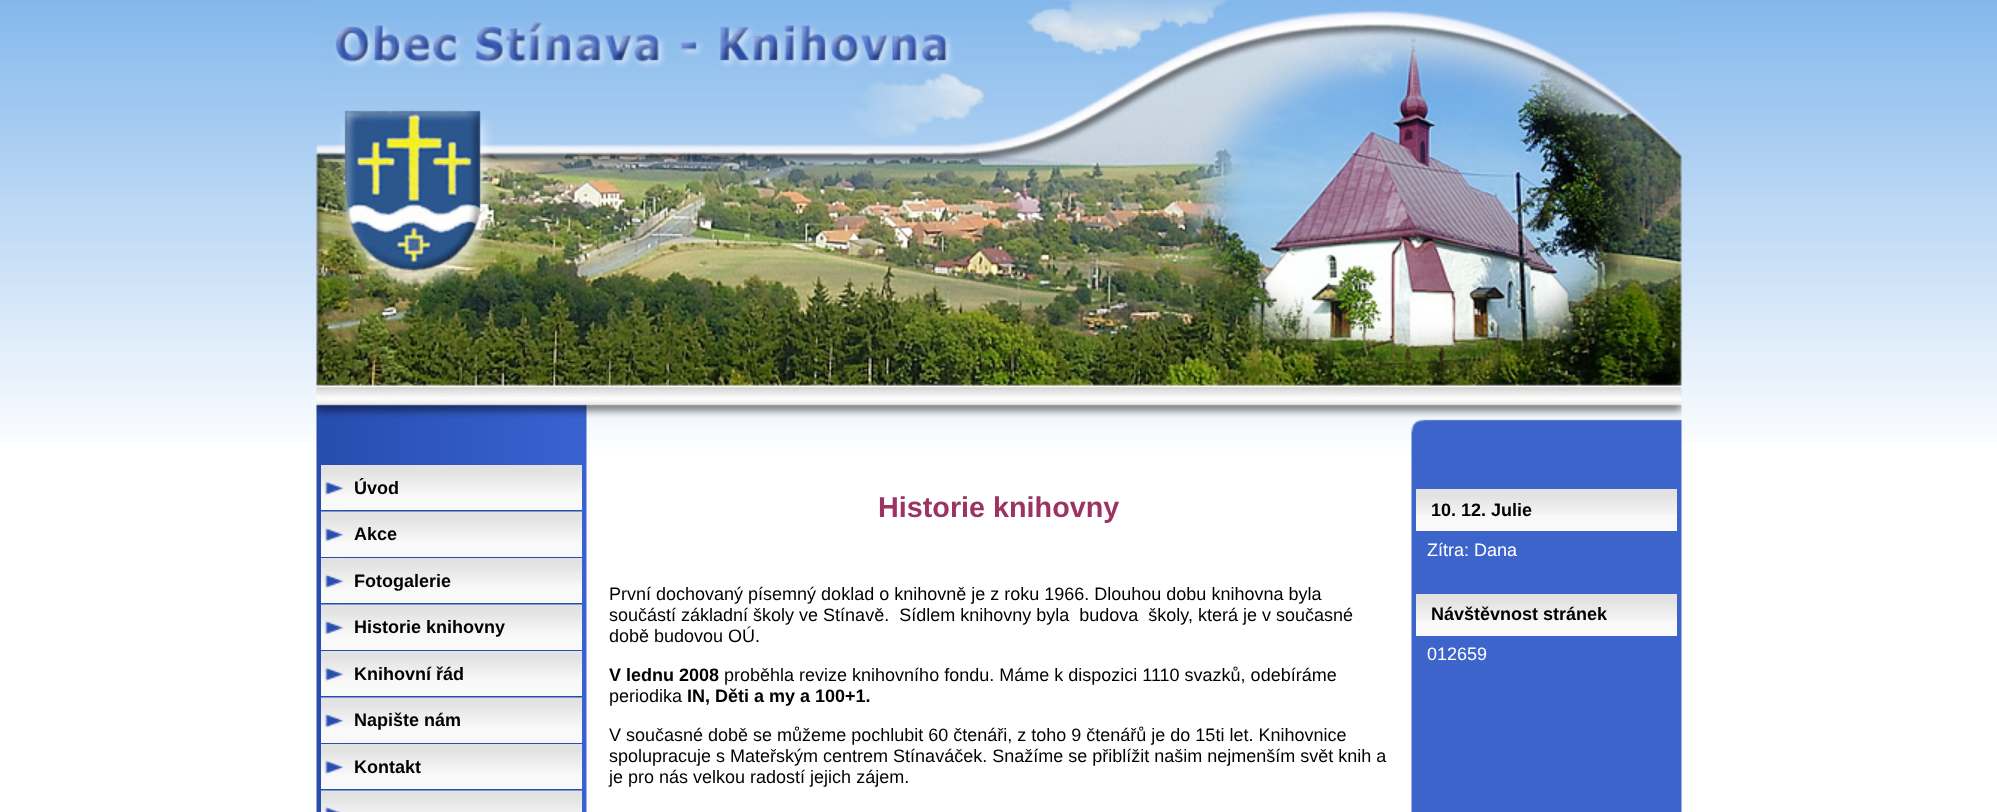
<!DOCTYPE html>
<meta charset="utf-8">
<style>body { margin: 0 } canvas { display: block }</style>
<canvas id="canvas" width="1997" height="812"></canvas>
<script type="module">
  const canvas = document.getElementById("canvas");
  const g = canvas.getContext("2d");
  g.miterLimit = 4;
  g.fontKerning = "normal";
  function drawText(s, x, y, [font, color]) {
    g.font = font;
    g.fillStyle = color;
    g.fillText(s, x, y);
  }
  function fillBox(x, y, w, h, color) {
    g.fillStyle = color;
    g.fillRect(x, y, w, h);
  }
  async function drawPicture(src, x, y, w, h) {
    const img = new Image();
    img.src = src;
    await img.decode();
    g.drawImage(img, x, y, w, h);
  }

  const s1 = ["bold 18px Liberation Sans", "#000000"];
  const s2 = ["bold 28.75px Liberation Sans", "#9C3463"];
  const s3 = ["18px Liberation Sans", "#000000"];
  const s4 = ["18px Liberation Sans", "#FFFFFF"];

  fillBox(0, 0, 1997, 812, "#FFFFFF");
  await drawPicture("pic1.png", 0, 0, 1997, 442);
  await drawPicture("pic2.png", 316, 0, 1366, 465);
  await drawPicture("pic3.png", 316, 465, 1366, 347);
  fillBox(343, 510, 239, 281, "#274DAF");
  fillBox(321, 496, 261, 14, "#F9F9F9");
  await drawPicture("pic4.png", 321, 465, 261, 31);
  drawText("Úvod", 354, 494, s1);
  fillBox(321, 542, 261, 15, "#F9F9F9");
  await drawPicture("pic5.png", 321, 511, 261, 31);
  drawText("Akce", 354, 540, s1);
  fillBox(321, 589, 261, 14, "#F9F9F9");
  await drawPicture("pic4.png", 321, 558, 261, 31);
  drawText("Fotogalerie", 354, 587, s1);
  fillBox(321, 635, 261, 15, "#F9F9F9");
  await drawPicture("pic5.png", 321, 604, 261, 31);
  drawText("Historie knihovny", 354, 633, s1);
  fillBox(321, 682, 261, 14, "#F9F9F9");
  await drawPicture("pic4.png", 321, 651, 261, 31);
  drawText("Knihovní řád", 354, 680, s1);
  fillBox(321, 728, 261, 15, "#F9F9F9");
  await drawPicture("pic5.png", 321, 697, 261, 31);
  drawText("Napište nám", 354, 726, s1);
  fillBox(321, 775, 261, 14, "#F9F9F9");
  await drawPicture("pic4.png", 321, 744, 261, 31);
  drawText("Kontakt", 354, 773, s1);
  await drawPicture("pic6.png", 321, 790, 261, 22);
  drawText("Historie knihovny", 878, 517, s2);
  drawText("První dochovaný písemný doklad o knihovně je z roku 1966. Dlouhou dobu knihovna byla", 609, 600, s3);
  drawText("součástí základní školy ve Stínavě.  Sídlem knihovny byla  budova  školy, která je v současné", 609, 621, s3);
  drawText("době budovou OÚ.", 609, 642, s3);
  drawText("V lednu 2008", 609, 681, s1);
  drawText("proběhla revize knihovního fondu. Máme k dispozici 1110 svazků, odebíráme", 724, 681, s3);
  drawText("periodika", 609, 702, s3);
  drawText("IN, Děti a my a 100+1.", 687, 702, s1);
  drawText("V současné době se můžeme pochlubit 60 čtenáři, z toho 9 čtenářů je do 15ti let. Knihovnice", 609, 741, s3);
  drawText("spolupracuje s Mateřským centrem Stínaváček. Snažíme se přiblížit našim nejmenším svět knih a", 609, 762, s3);
  drawText("je pro nás velkou radostí jejich zájem.", 609, 783, s3);
  fillBox(1416, 515, 261, 16, "#F9F9F9");
  await drawPicture("pic7.png", 1416, 489, 261, 26);
  drawText("10. 12. Julie", 1431, 516, s1);
  drawText("Zítra: Dana", 1427, 556, s4);
  fillBox(1416, 620, 261, 16, "#F9F9F9");
  await drawPicture("pic7.png", 1416, 594, 261, 26);
  drawText("Návštěvnost stránek", 1431, 620, s1);
  drawText("012659", 1427, 660, s4);
</script>
